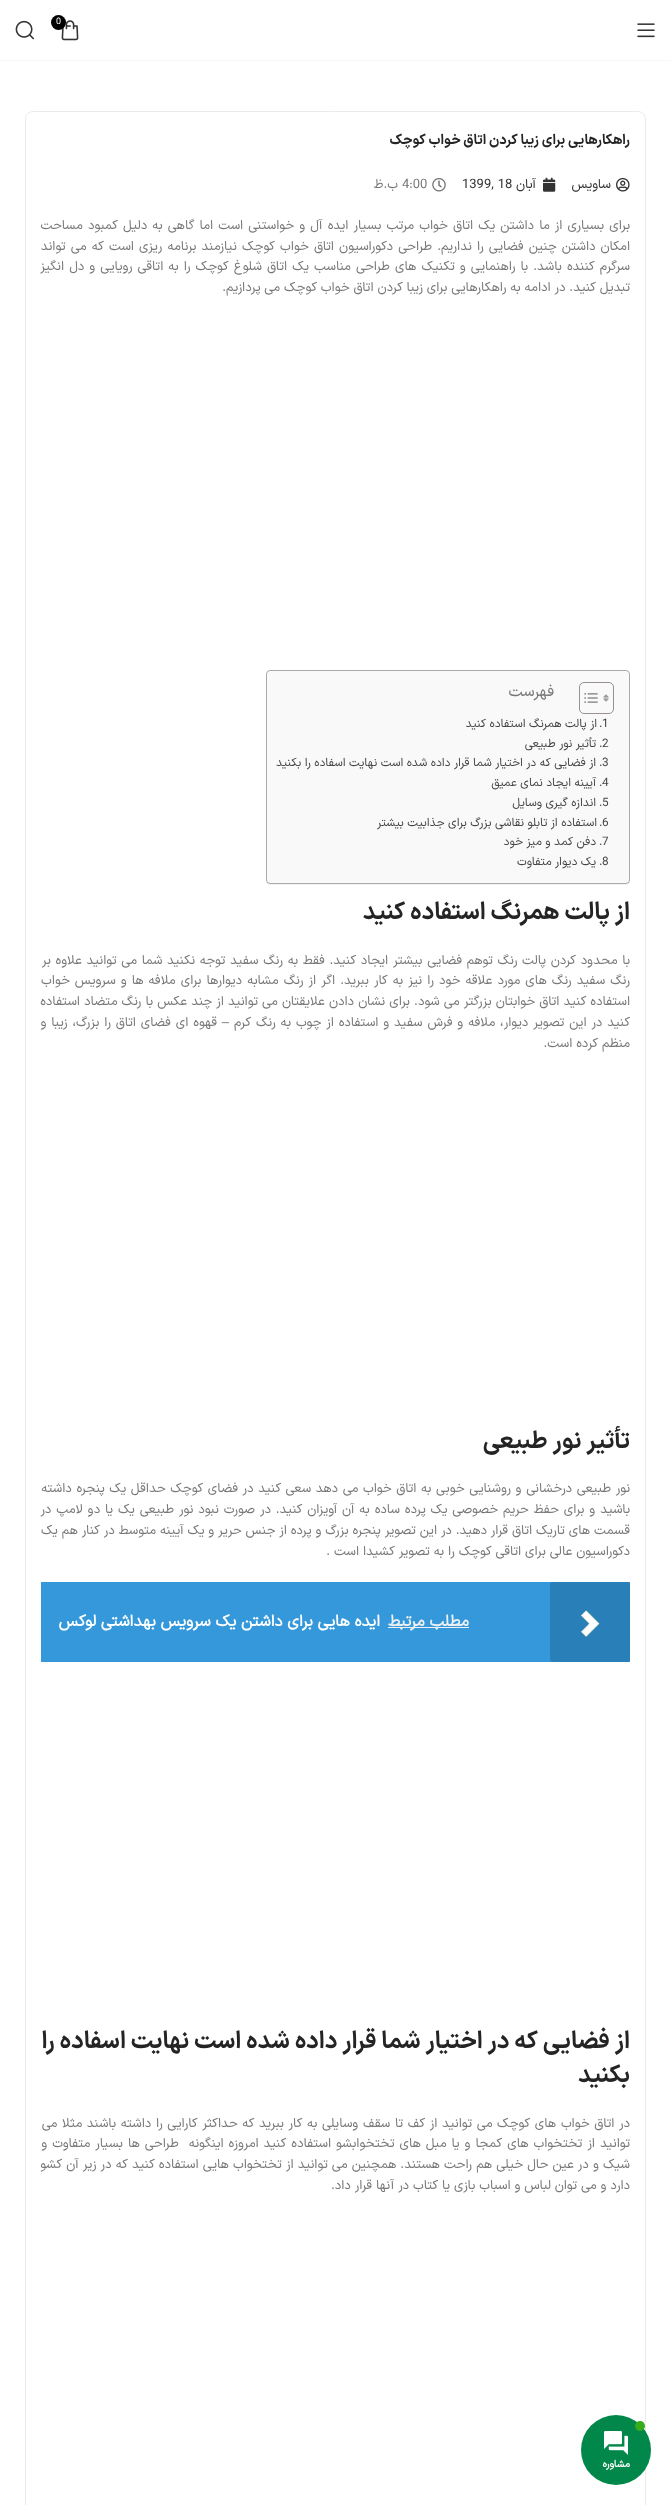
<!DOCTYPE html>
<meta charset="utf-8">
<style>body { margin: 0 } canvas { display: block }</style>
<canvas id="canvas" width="671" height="2505"></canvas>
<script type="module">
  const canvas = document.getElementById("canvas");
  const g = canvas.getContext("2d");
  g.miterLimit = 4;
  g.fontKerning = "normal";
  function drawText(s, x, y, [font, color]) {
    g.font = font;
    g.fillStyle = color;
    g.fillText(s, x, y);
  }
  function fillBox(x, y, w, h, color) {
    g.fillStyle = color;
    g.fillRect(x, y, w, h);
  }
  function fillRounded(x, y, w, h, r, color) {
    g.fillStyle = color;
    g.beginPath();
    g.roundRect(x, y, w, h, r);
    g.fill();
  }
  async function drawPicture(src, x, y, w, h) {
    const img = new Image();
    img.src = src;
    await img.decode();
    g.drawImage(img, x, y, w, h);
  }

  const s1 = ["9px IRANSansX", "#FFFFFF"];
  const s2 = ["bold 14px IRANSansX", "#242424"];
  const s3 = ["13px IRANSansX", "#333333"];
  const s4 = ["13px IRANSansX", "#777777"];
  const s5 = ["15.5px IRANSansX", "#777777"];
  const s6 = ["11.75px IRANSansX", "#444444"];
  const s7 = ["bold 24px IRANSansX", "#242424"];
  const s8 = ["13px Liberation Sans", "#777777"];
  const s9 = ["bold 16px 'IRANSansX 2'", "#ECF0F1"];
  const s10 = ["bold 16px 'IRANSansX 2'", "#FFFFFF"];
  const s11 = ["bold 10px 'IRANSansX 2'", "#FFFFFF"];

  fillBox(0, 0, 671, 2505, "#FFFFFF");
  fillBox(0, 60, 671, 1, "#F8F8F8");
  await drawPicture("pic1.png", 61, 20, 18, 21);
  g.fillStyle = "#000000";
  g.beginPath();
  g.arc(58.5, 22.5, 7.5, 0, Math.PI * 2);
  g.fill();
  drawText("0", 56, 24, s1);
  await drawPicture("pic2.png", 15, 20, 19, 20);
  await drawPicture("pic3.png", 637, 23, 18, 15);
  g.beginPath();
  g.roundRect(25.5, 111.5, 620, 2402, 7.5);
  g.strokeStyle = "#EBEBEB";
  g.stroke();
  g.direction = "rtl";
  drawText("راهکارهایی برای زیبا کردن اتاق خواب کوچک", 630, 144, s2);
  await drawPicture("pic4.png", 616, 178, 14, 14);
  drawText("ساویس", 611, 188, s3);
  await drawPicture("pic5.png", 543, 177, 13, 15);
  drawText("آبان", 536, 188, s3);
  g.direction = "ltr";
  drawText("1399, 18", 462, 188, s3);
  await drawPicture("pic6.png", 432, 178, 14, 14);
  drawText("4:00", 402, 188, s4);
  g.direction = "rtl";
  drawText("ب.ظ", 398, 188, s4);
  g.wordSpacing = "1.25px";
  drawText("برای بسیاری از ما داشتن یک اتاق خواب مرتب بسیار ایده آل و خواستنی است اما گاهی به دلیل کمبود مساحت", 630, 229, s4);
  drawText("امکان داشتن چنین فضایی را نداریم. طراحی دکوراسیون اتاق خواب کوچک نیازمند برنامه ریزی است که می تواند", 630, 250, s4);
  g.wordSpacing = "1.2px";
  drawText("سرگرم کننده باشد. با راهنمایی و تکنیک های طراحی مناسب یک اتاق شلوغ کوچک را به اتاقی رویایی و دل انگیز", 630, 270, s4);
  g.wordSpacing = "0px";
  drawText("تبدیل کنید. در ادامه به راهکارهایی برای زیبا کردن اتاق خواب کوچک می پردازیم.", 630, 291, s4);
  g.fillStyle = "rgba(0, 0, 0, 0.05)";
  g.filter = "blur(0.5px)";
  g.beginPath();
  g.roundRect(266, 671, 364, 214, 4);
  g.fill();
  g.filter = "none";
  g.fillStyle = "#F9F9F9";
  g.beginPath();
  g.roundRect(266.5, 670.5, 363, 213, 3.5);
  g.fill();
  g.strokeStyle = "#AAAAAA";
  g.stroke();
  g.beginPath();
  g.roundRect(579.5, 682.5, 34, 31, 4.5);
  g.strokeStyle = "#999191";
  g.stroke();
  await drawPicture("pic7.png", 603, 694, 6, 8);
  await drawPicture("pic8.png", 584, 693, 14, 10);
  drawText("فهرست", 554, 696, s5);
  g.direction = "ltr";
  drawText("1", 602, 727, s6);
  drawText(".", 599, 727, s6);
  g.direction = "rtl";
  drawText("از پالت همرنگ استفاده کنید", 597, 727, s6);
  g.direction = "ltr";
  drawText("2", 602, 747, s6);
  drawText(".", 599, 747, s6);
  g.direction = "rtl";
  drawText("تأثیر نور طبیعی", 596, 747, s6);
  g.direction = "ltr";
  drawText("3", 602, 766, s6);
  drawText(".", 599, 766, s6);
  g.direction = "rtl";
  drawText("از فضایی که در اختیار شما قرار داده شده است نهایت اسفاده را بکنید", 596, 766, s6);
  g.direction = "ltr";
  drawText("4", 602, 786, s6);
  drawText(".", 599, 786, s6);
  g.direction = "rtl";
  drawText("آیینه ایجاد نمای عمیق", 596, 786, s6);
  g.direction = "ltr";
  drawText("5", 602, 806, s6);
  drawText(".", 599, 806, s6);
  g.direction = "rtl";
  drawText("اندازه گیری وسایل", 596, 806, s6);
  g.direction = "ltr";
  drawText("6", 602, 826, s6);
  drawText(".", 599, 826, s6);
  g.direction = "rtl";
  drawText("استفاده از تابلو نقاشی بزرگ برای جذابیت بیشتر", 597, 826, s6);
  g.direction = "ltr";
  drawText("7", 602, 845, s6);
  drawText(".", 599, 845, s6);
  g.direction = "rtl";
  drawText("دفن کمد و میز خود", 596, 845, s6);
  g.direction = "ltr";
  drawText("8", 602, 865, s6);
  drawText(".", 599, 865, s6);
  g.direction = "rtl";
  drawText("یک دیوار متفاوت", 596, 865, s6);
  drawText("از پالت همرنگ استفاده کنید", 630, 919, s7);
  g.wordSpacing = "0.8px";
  drawText("با محدود کردن پالت رنگ توهم فضایی بیشتر ایجاد کنید. فقط به رنگ سفید توجه نکنید شما می توانید علاوه بر", 630, 964, s4);
  g.wordSpacing = "1.2px";
  drawText("رنگ سفید رنگ های مورد علاقه خود را نیز به کار ببرید. اگر از رنگ مشابه دیوارها برای ملافه ها و سرویس خواب", 630, 984, s4);
  g.wordSpacing = "0.2px";
  drawText("استفاده کنید اتاق خوابتان بزرگتر می شود. برای نشان دادن علایقتان می توانید از چند عکس با رنگ متضاد استفاده", 630, 1005, s4);
  g.wordSpacing = "1px";
  drawText("کنید در این تصویر دیوار، ملافه و فرش سفید و استفاده از چوب به رنگ کرم", 630, 1026, s4);
  g.wordSpacing = "0px";
  drawText("–", 229, 1026, s8);
  g.wordSpacing = "1px";
  drawText("قهوه ای فضای اتاق را بزرگ، زیبا و", 217, 1026, s4);
  g.wordSpacing = "0px";
  drawText("منظم کرده است.", 630, 1047, s4);
  drawText("تأثیر نور طبیعی", 630, 1448, s7);
  g.wordSpacing = "0.75px";
  drawText("نور طبیعی درخشانی و روشنایی خوبی به اتاق خواب می دهد سعی کنید در فضای کوچک حداقل یک پنجره داشته", 630, 1492, s4);
  g.wordSpacing = "1px";
  drawText("باشید و برای حفظ حریم خصوصی یک پرده ساده به آن آویزان کنید. در صورت نبود نور طبیعی یک یا دو لامپ در", 630, 1513, s4);
  g.wordSpacing = "0px";
  drawText("قسمت های تاریک اتاق قرار دهید. در این تصویر پنجره بزرگ و پرده از جنس حریر و یک آیینه متوسط در کنار هم یک", 630, 1534, s4);
  drawText("دکوراسیون عالی برای اتاقی کوچک را به تصویر کشیدا است .", 630, 1555, s4);
  fillBox(41, 1582, 589, 80, "#3498DB");
  fillRounded(550, 1582, 80, 80, 3, "#2980B9");
  await drawPicture("pic9.png", 581, 1610, 19, 27);
  fillBox(388, 1627, 81, 1, "#ECF0F1");
  drawText("مطلب مرتبط", 469, 1626, s9);
  drawText("ایده هایی برای داشتن یک سرویس بهداشتی لوکس", 380, 1626, s10);
  drawText("از فضایی که در اختیار شما قرار داده شده است نهایت اسفاده را", 630, 2048, s7);
  drawText("بکنید", 630, 2082, s7);
  g.wordSpacing = "0.8px";
  drawText("در اتاق خواب های کوچک می توانید از کف تا سقف وسایلی به کار ببرید که حداکثر کارایی را داشته باشند مثلا می", 630, 2127, s4);
  g.wordSpacing = "1.1px";
  drawText("توانید از تختخواب های کمجا و یا مبل های تختخوابشو استفاده کنید امروزه اینگونه  طراحی ها بسیار متفاوت و", 630, 2147, s4);
  g.wordSpacing = "0.25px";
  drawText("شیک و در عین حال خیلی هم راحت هستند. همچنین می توانید از تختخواب هایی استفاده کنید که در زیر آن کشو", 630, 2168, s4);
  g.wordSpacing = "0px";
  drawText("دارد و می توان لباس و اسباب بازی یا کتاب در آنها قرار داد.", 630, 2189, s4);
  g.fillStyle = "#008749";
  g.beginPath();
  g.arc(616, 2450, 35, 0, Math.PI * 2);
  g.fill();
  g.fillStyle = "#35AC19";
  g.beginPath();
  g.arc(640, 2426, 5, 0, Math.PI * 2);
  g.fill();
  await drawPicture("pic10.png", 604, 2431, 24, 24);
  drawText("مشاوره", 630, 2467, s11);
</script>
